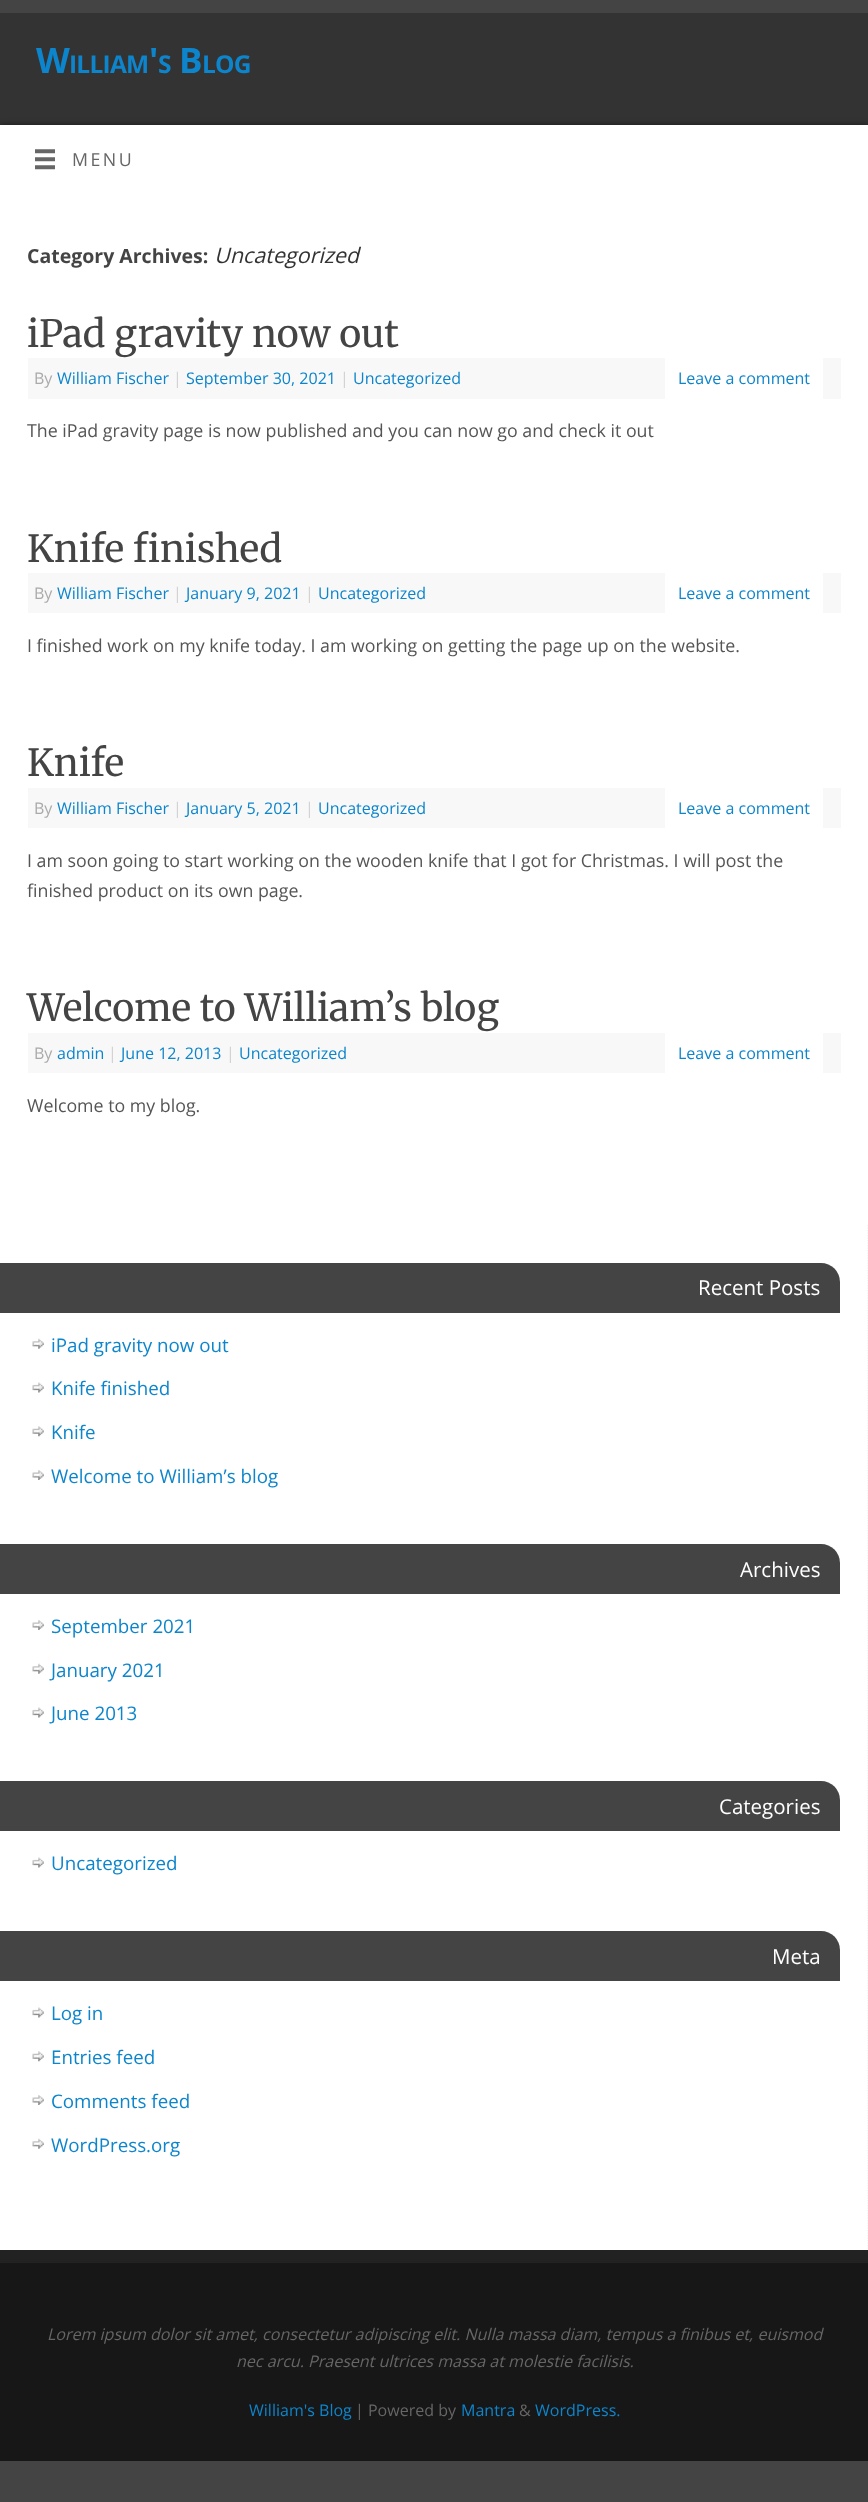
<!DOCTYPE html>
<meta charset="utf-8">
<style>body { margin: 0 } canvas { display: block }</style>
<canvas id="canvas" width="868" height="2502"></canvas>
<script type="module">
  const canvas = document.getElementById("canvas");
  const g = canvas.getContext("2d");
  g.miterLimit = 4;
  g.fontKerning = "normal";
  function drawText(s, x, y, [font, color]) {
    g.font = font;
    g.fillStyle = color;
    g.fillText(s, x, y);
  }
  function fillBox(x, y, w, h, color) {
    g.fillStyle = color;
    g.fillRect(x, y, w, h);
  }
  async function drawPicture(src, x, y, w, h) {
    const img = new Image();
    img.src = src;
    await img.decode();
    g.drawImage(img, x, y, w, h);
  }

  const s1 = ["bold 35px Open Sans", "#0D85CC"];
  const s2 = ["bold 24.5px Open Sans", "#0D85CC"];
  const s3 = ["17.8px Open Sans", "#666666"];
  const s4 = ["bold 19.5px Open Sans", "#444444"];
  const s5 = ["italic 21.5px Open Sans", "#333333"];
  const s6 = ["37.5px Merriweather", "#444444"];
  const s7 = ["16.05px Open Sans", "#AAAAAA"];
  const s8 = ["16.05px Open Sans", "#0D85CC"];
  const s9 = ["16.05px Open Sans", "#D1D1D1"];
  const s10 = ["17.8px Open Sans", "#555555"];
  const s11 = ["20.5px Open Sans", "#FFFFFF"];
  const s12 = ["18.75px Open Sans", "#0D85CC"];
  const s13 = ["italic 16.05px Open Sans", "#666666"];
  const s14 = ["16.05px Open Sans", "#666666"];

  fillBox(0, 0, 868, 2502, "#444444");
  fillBox(0, 13, 868, 112, "#333333");
  g.letterSpacing = "-0.75px";
  drawText("W", 36, 73, s1);
  drawText("ILLIAM", 69, 73, s2);
  drawText("'", 149, 73, s1);
  drawText("S", 158, 73, s2);
  drawText("B", 179, 73, s1);
  drawText("LOG", 202, 73, s2);
  g.fillStyle = "rgba(0, 0, 0, 0.5)";
  g.filter = "blur(3px)";
  g.beginPath();
  g.rect(0, 125, 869, 68);
  g.fill();
  g.filter = "none";
  fillBox(0, 125, 868, 2125, "#FFFFFF");
  await drawPicture("pic1.png", 35, 149, 20, 21);
  g.letterSpacing = "2.5px";
  drawText("MENU", 72, 166, s3);
  g.letterSpacing = "0px";
  drawText("Category Archives:", 27, 263, s4);
  drawText("Uncategorized", 214, 263, s5);
  drawText("iPad gravity now out", 27, 347, s6);
  fillBox(28, 358, 813, 41, "#F8F8F8");
  drawText("By", 34, 384, s7);
  drawText("William Fischer", 57, 384, s8);
  drawText("|", 173, 384, s9);
  drawText("September 30, 2021", 186, 384, s8);
  drawText("|", 340, 384, s9);
  drawText("Uncategorized", 353, 384, s8);
  fillBox(665, 358, 158, 41, "#FFFFFF");
  drawText("Leave a comment", 678, 384, s8);
  drawText("The iPad gravity page is now published and you can now go and check it out", 27, 437, s10);
  drawText("Knife finished", 27, 562, s6);
  fillBox(28, 573, 813, 40, "#F8F8F8");
  drawText("By", 34, 599, s7);
  drawText("William Fischer", 57, 599, s8);
  drawText("|", 173, 599, s9);
  drawText("January 9, 2021", 186, 599, s8);
  drawText("|", 305, 599, s9);
  drawText("Uncategorized", 318, 599, s8);
  fillBox(665, 573, 158, 40, "#FFFFFF");
  drawText("Leave a comment", 678, 599, s8);
  drawText("I finished work on my knife today. I am working on getting the page up on the website.", 27, 652, s10);
  drawText("Knife", 27, 776, s6);
  fillBox(28, 788, 813, 40, "#F8F8F8");
  drawText("By", 34, 814, s7);
  drawText("William Fischer", 57, 814, s8);
  drawText("|", 173, 814, s9);
  drawText("January 5, 2021", 186, 814, s8);
  drawText("|", 305, 814, s9);
  drawText("Uncategorized", 318, 814, s8);
  fillBox(665, 788, 158, 40, "#FFFFFF");
  drawText("Leave a comment", 678, 814, s8);
  drawText("I am soon going to start working on the wooden knife that I got for Christmas. I will post the", 27, 867, s10);
  drawText("finished product on its own page.", 27, 897, s10);
  drawText("Welcome to William’s blog", 27, 1021, s6);
  fillBox(28, 1033, 813, 40, "#F8F8F8");
  drawText("By", 34, 1059, s7);
  drawText("admin", 57, 1059, s8);
  drawText("|", 108, 1059, s9);
  drawText("June 12, 2013", 121, 1059, s8);
  drawText("|", 226, 1059, s9);
  drawText("Uncategorized", 239, 1059, s8);
  fillBox(665, 1033, 158, 40, "#FFFFFF");
  drawText("Leave a comment", 678, 1059, s8);
  drawText("Welcome to my blog.", 27, 1112, s10);
  g.beginPath();
  g.moveTo(868, 1225);
  g.lineTo(868, 2250);
  g.strokeStyle = "#EEEEEE";
  g.lineWidth = 1.2;
  g.setLineDash([1.25, 1.25]);
  g.stroke();
  g.fillStyle = "#444444";
  g.beginPath();
  g.roundRect(0, 1263, 840, 50, [0, 19, 0, 0]);
  g.fill();
  drawText("Recent Posts", 698, 1295, s11);
  await drawPicture("pic2.png", 32, 1338, 12, 11);
  drawText("iPad gravity now out", 51, 1352, s12);
  await drawPicture("pic3.png", 32, 1382, 12, 11);
  drawText("Knife finished", 51, 1395, s12);
  await drawPicture("pic4.png", 32, 1426, 12, 11);
  drawText("Knife", 51, 1439, s12);
  await drawPicture("pic5.png", 32, 1470, 12, 10);
  drawText("Welcome to William’s blog", 51, 1483, s12);
  g.fillStyle = "#444444";
  g.beginPath();
  g.roundRect(0, 1544, 840, 50, [0, 19, 0, 0]);
  g.fill();
  drawText("Archives", 740, 1577, s11);
  await drawPicture("pic5.png", 32, 1620, 12, 10);
  drawText("September 2021", 51, 1633, s12);
  await drawPicture("pic2.png", 32, 1663, 12, 11);
  drawText("January 2021", 51, 1677, s12);
  await drawPicture("pic3.png", 32, 1707, 12, 11);
  drawText("June 2013", 51, 1720, s12);
  g.fillStyle = "#444444";
  g.beginPath();
  g.roundRect(0, 1781, 840, 50, [0, 19, 0, 0]);
  g.fill();
  drawText("Categories", 719, 1814, s11);
  await drawPicture("pic6.png", 32, 1857, 12, 11);
  drawText("Uncategorized", 51, 1870, s12);
  g.fillStyle = "#444444";
  g.beginPath();
  g.roundRect(0, 1931, 840, 50, [0, 19, 0, 0]);
  g.fill();
  drawText("Meta", 772, 1964, s11);
  await drawPicture("pic3.png", 32, 2007, 12, 11);
  drawText("Log in", 51, 2020, s12);
  await drawPicture("pic7.png", 32, 2051, 12, 11);
  drawText("Entries feed", 51, 2064, s12);
  await drawPicture("pic5.png", 32, 2095, 12, 10);
  drawText("Comments feed", 51, 2108, s12);
  await drawPicture("pic2.png", 32, 2138, 12, 11);
  drawText("WordPress.org", 51, 2152, s12);
  fillBox(0, 2250, 868, 13, "#222222");
  fillBox(0, 2263, 868, 198, "#171717");
  drawText("Lorem ipsum dolor sit amet, consectetur adipiscing elit. Nulla massa diam, tempus a finibus et, euismod", 47, 2340, s13);
  drawText("nec arcu. Praesent ultrices massa at molestie facilisis.", 236, 2367, s13);
  drawText("William's Blog", 249, 2416, s8);
  drawText("| Powered by", 355, 2416, s14);
  drawText("Mantra", 461, 2416, s8);
  drawText("&", 519, 2416, s14);
  drawText("WordPress.", 535, 2416, s8);
</script>
